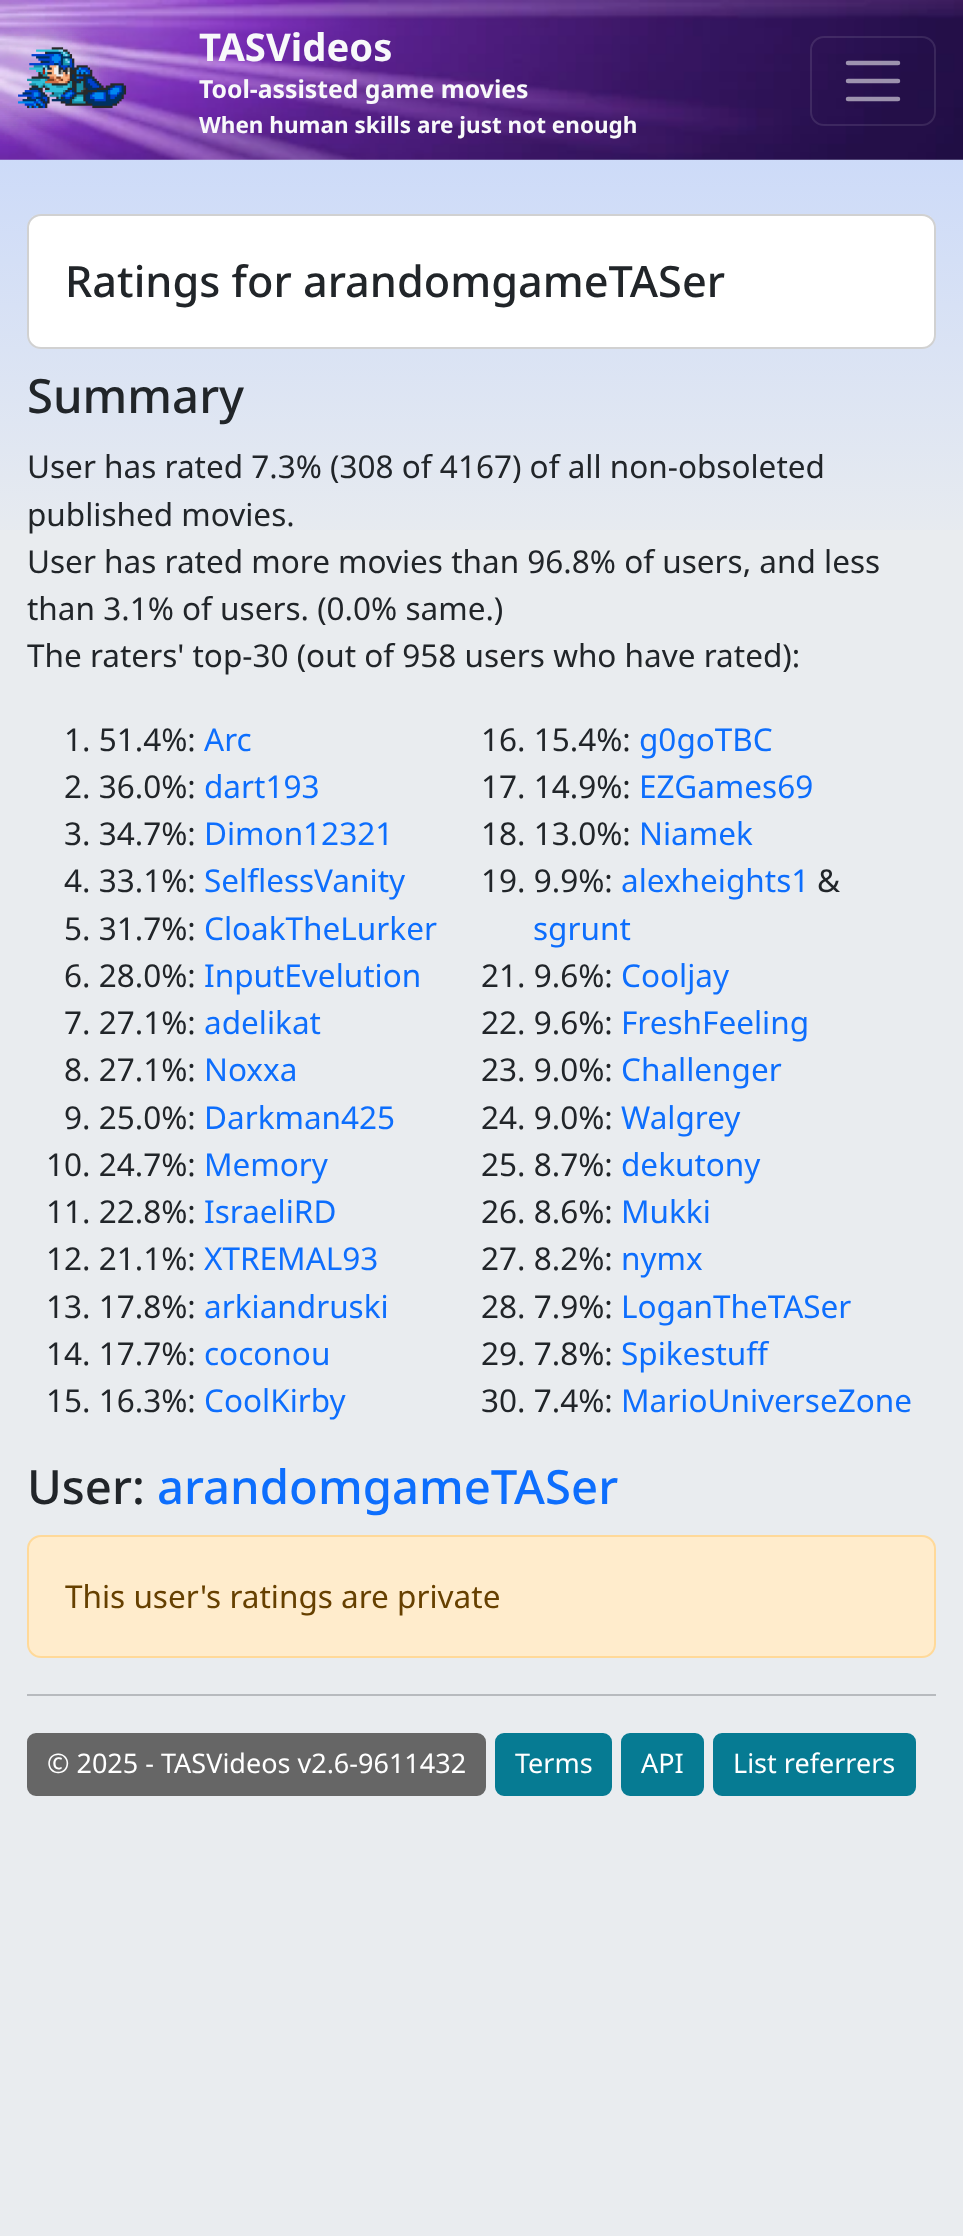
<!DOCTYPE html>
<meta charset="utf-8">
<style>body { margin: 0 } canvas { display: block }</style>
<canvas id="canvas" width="963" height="2236"></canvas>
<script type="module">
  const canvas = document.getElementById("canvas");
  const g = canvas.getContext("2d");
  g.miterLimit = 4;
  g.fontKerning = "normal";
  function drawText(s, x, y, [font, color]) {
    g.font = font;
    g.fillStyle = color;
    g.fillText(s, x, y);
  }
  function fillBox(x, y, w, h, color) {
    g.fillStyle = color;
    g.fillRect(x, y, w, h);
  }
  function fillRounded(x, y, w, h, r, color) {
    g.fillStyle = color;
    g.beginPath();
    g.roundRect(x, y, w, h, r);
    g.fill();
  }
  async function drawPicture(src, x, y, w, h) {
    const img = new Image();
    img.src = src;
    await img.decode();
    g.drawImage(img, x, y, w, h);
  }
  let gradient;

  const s1 = ["bold 38.25px Noto Sans", "#F8F9FA"];
  const s2 = ["bold 24.75px Noto Sans", "#F8F9FA"];
  const s3 = ["bold 22.5px Noto Sans", "#F8F9FA"];
  const s4 = ["500 43.25px Noto Sans", "#212529"];
  const s5 = ["500 47.25px Noto Sans", "#212529"];
  const s6 = ["31.5px Noto Sans", "#212529"];
  const s7 = ["31.5px Noto Sans", "#0D6EFD"];
  const s8 = ["500 47.25px Noto Sans", "#0D6EFD"];
  const s9 = ["31.5px Noto Sans", "#664000"];
  const s10 = ["27px Noto Sans", "#FFFFFF"];

  fillBox(0, 0, 963, 2236, "#E9ECEF");
  gradient = g.createLinearGradient(481, 0, 482, 1886);
  gradient.addColorStop(0, "#C2D4FC");
  gradient.addColorStop(0.3, "#E9ECEF");
  g.fillStyle = gradient;
  g.fillRect(0, 159, 963, 371);
  await drawPicture("pic1.png", 0, 0, 963, 160);
  await drawPicture("pic2.png", 0, 0, 127, 146);
  drawText("TASVideos", 199, 61, s1);
  drawText("Tool-assisted game movies", 199, 98, s2);
  drawText("When human skills are just not enough", 199, 133, s3);
  g.beginPath();
  g.roundRect(811, 37, 124, 88, 13);
  g.strokeStyle = "rgba(255, 255, 255, 0.1)";
  g.lineWidth = 2;
  g.stroke();
  g.beginPath();
  g.moveTo(848, 63);
  g.lineTo(898, 63);
  g.moveTo(848, 81);
  g.lineTo(898, 81);
  g.moveTo(848, 99);
  g.lineTo(898, 99);
  g.strokeStyle = "rgba(255, 255, 255, 0.55)";
  g.lineWidth = 4.5;
  g.lineCap = "round";
  g.stroke();
  fillRounded(27, 214, 909, 135, 14, "#FFFFFF");
  g.beginPath();
  g.roundRect(28, 215, 907, 133, 13);
  g.strokeStyle = "rgba(0, 0, 0, 0.18)";
  g.lineWidth = 2;
  g.stroke();
  drawText("Ratings for arandomgameTASer", 65, 297, s4);
  drawText("Summary", 27, 413, s5);
  drawText("User has rated 7.3% (308 of 4167) of all non-obsoleted", 27, 478, s6);
  drawText("published movies.", 27, 526, s6);
  drawText("User has rated more movies than 96.8% of users, and less", 27, 573, s6);
  drawText("than 3.1% of users. (0.0% same.)", 27, 620, s6);
  drawText("The raters' top-30 (out of 958 users who have rated):", 27, 667, s6);
  drawText("1. 51.4%:", 64, 751, s6);
  drawText("Arc", 204, 751, s7);
  drawText("16. 15.4%:", 481, 751, s6);
  drawText("g0goTBC", 639, 751, s7);
  drawText("2. 36.0%:", 64, 798, s6);
  drawText("dart193", 204, 798, s7);
  drawText("17. 14.9%:", 481, 798, s6);
  drawText("EZGames69", 639, 798, s7);
  drawText("3. 34.7%:", 64, 845, s6);
  drawText("Dimon12321", 204, 845, s7);
  drawText("18. 13.0%:", 481, 845, s6);
  drawText("Niamek", 639, 845, s7);
  drawText("4. 33.1%:", 64, 892, s6);
  drawText("SelflessVanity", 204, 892, s7);
  drawText("19. 9.9%:", 481, 892, s6);
  drawText("alexheights1", 621, 892, s7);
  drawText("&", 817, 892, s6);
  drawText("sgrunt", 533, 940, s7);
  drawText("5. 31.7%:", 64, 940, s6);
  drawText("CloakTheLurker", 204, 940, s7);
  drawText("6. 28.0%:", 64, 987, s6);
  drawText("InputEvelution", 204, 987, s7);
  drawText("21. 9.6%:", 481, 987, s6);
  drawText("Cooljay", 621, 987, s7);
  drawText("7. 27.1%:", 64, 1034, s6);
  drawText("adelikat", 204, 1034, s7);
  drawText("22. 9.6%:", 481, 1034, s6);
  drawText("FreshFeeling", 621, 1034, s7);
  drawText("8. 27.1%:", 64, 1081, s6);
  drawText("Noxxa", 204, 1081, s7);
  drawText("23. 9.0%:", 481, 1081, s6);
  drawText("Challenger", 621, 1081, s7);
  drawText("9. 25.0%:", 64, 1129, s6);
  drawText("Darkman425", 204, 1129, s7);
  drawText("24. 9.0%:", 481, 1129, s6);
  drawText("Walgrey", 621, 1129, s7);
  drawText("10. 24.7%:", 46, 1176, s6);
  drawText("Memory", 204, 1176, s7);
  drawText("25. 8.7%:", 481, 1176, s6);
  drawText("dekutony", 621, 1176, s7);
  drawText("11. 22.8%:", 46, 1223, s6);
  drawText("IsraeliRD", 204, 1223, s7);
  drawText("26. 8.6%:", 481, 1223, s6);
  drawText("Mukki", 621, 1223, s7);
  drawText("12. 21.1%:", 46, 1270, s6);
  drawText("XTREMAL93", 204, 1270, s7);
  drawText("27. 8.2%:", 481, 1270, s6);
  drawText("nymx", 621, 1270, s7);
  drawText("13. 17.8%:", 46, 1318, s6);
  drawText("arkiandruski", 204, 1318, s7);
  drawText("28. 7.9%:", 481, 1318, s6);
  drawText("LoganTheTASer", 621, 1318, s7);
  drawText("14. 17.7%:", 46, 1365, s6);
  drawText("coconou", 204, 1365, s7);
  drawText("29. 7.8%:", 481, 1365, s6);
  drawText("Spikestuff", 621, 1365, s7);
  drawText("15. 16.3%:", 46, 1412, s6);
  drawText("CoolKirby", 204, 1412, s7);
  drawText("30. 7.4%:", 481, 1412, s6);
  drawText("MarioUniverseZone", 621, 1412, s7);
  drawText("User:", 27, 1504, s5);
  drawText("arandomgameTASer", 157, 1504, s8);
  g.fillStyle = "#FFECCC";
  g.beginPath();
  g.roundRect(28, 1536, 907, 121, 13);
  g.fill();
  g.strokeStyle = "#FFD999";
  g.stroke();
  drawText("This user's ratings are private", 65, 1608, s9);
  fillBox(27, 1694, 909, 2, "#B7BABE");
  g.fillStyle = "#666666";
  g.beginPath();
  g.roundRect(28, 1734, 457, 61, 8);
  g.fill();
  g.strokeStyle = "#666666";
  g.stroke();
  drawText("© 2025 - TASVideos v2.6-9611432", 47, 1773, s10);
  g.fillStyle = "#067B93";
  g.beginPath();
  g.roundRect(496, 1734, 115, 61, 8);
  g.fill();
  g.strokeStyle = "#067B93";
  g.stroke();
  drawText("Terms", 515, 1773, s10);
  g.fillStyle = "#067B93";
  g.beginPath();
  g.roundRect(622, 1734, 81, 61, 8);
  g.fill();
  g.stroke();
  drawText("API", 641, 1773, s10);
  g.fillStyle = "#067B93";
  g.beginPath();
  g.roundRect(714, 1734, 201, 61, 8);
  g.fill();
  g.stroke();
  drawText("List referrers", 733, 1773, s10);
</script>
